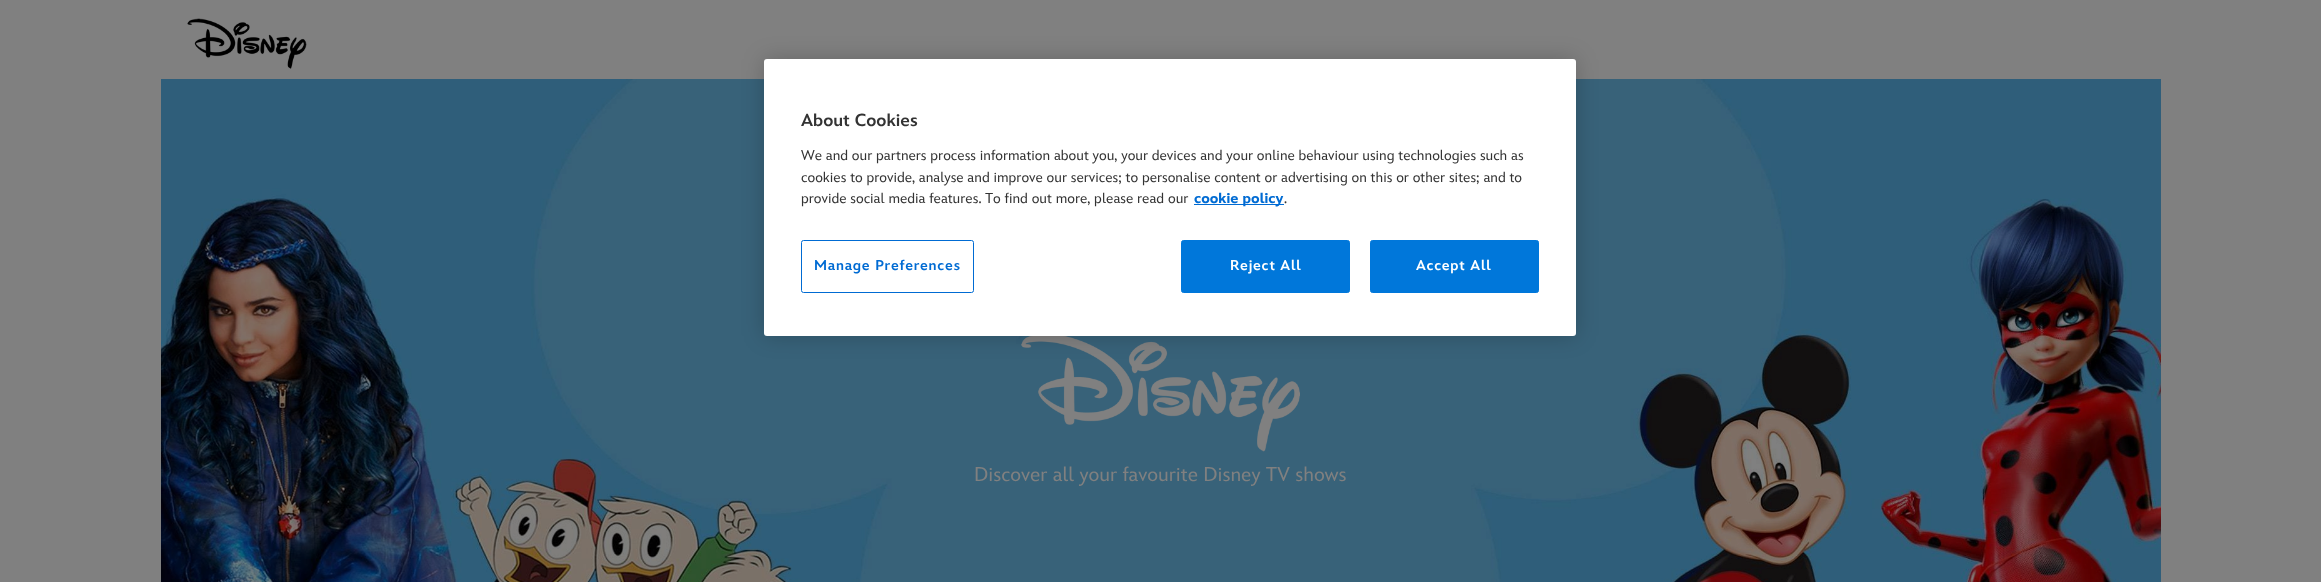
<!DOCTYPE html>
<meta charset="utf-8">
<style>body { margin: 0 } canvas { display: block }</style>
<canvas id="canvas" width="2321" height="582"></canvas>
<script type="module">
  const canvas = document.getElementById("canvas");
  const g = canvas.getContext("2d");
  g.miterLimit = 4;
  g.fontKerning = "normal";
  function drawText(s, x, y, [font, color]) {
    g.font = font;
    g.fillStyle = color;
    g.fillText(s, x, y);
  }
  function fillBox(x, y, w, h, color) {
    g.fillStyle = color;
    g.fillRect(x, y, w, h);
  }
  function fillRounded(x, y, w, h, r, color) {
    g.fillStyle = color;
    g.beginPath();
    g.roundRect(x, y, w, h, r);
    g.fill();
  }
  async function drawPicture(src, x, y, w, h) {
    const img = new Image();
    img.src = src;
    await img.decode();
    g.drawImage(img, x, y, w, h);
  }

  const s1 = ["900 17.5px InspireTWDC", "#333333"];
  const s2 = ["14.23px InspireTWDC", "#333333"];
  const s3 = ["900 14.23px 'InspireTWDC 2'", "#006BD3"];
  const s4 = ["900 14.23px InspireTWDC", "#006BD3"];
  const s5 = ["900 14.23px InspireTWDC", "#FFFFFF"];
  const s6 = ["20px InspireTWDC", "#808080"];

  fillBox(0, 0, 2321, 582, "#808080");
  await drawPicture("pic2.png", 161, 79, 2000, 503);
  await drawPicture("pic3.png", 1021, 336, 279, 116);
  g.fillStyle = "rgba(0, 0, 0, 0.2)";
  g.filter = "blur(11px)";
  g.beginPath();
  g.roundRect(764, 59, 812, 277, 3);
  g.fill();
  g.filter = "none";
  fillRounded(764, 59, 812, 277, 3, "#FFFFFF");
  drawText("About Cookies", 801, 126, s1);
  drawText("We and our partners process information about you, your devices and your online behaviour using technologies such as", 801, 160, s2);
  drawText("cookies to provide, analyse and improve our services; to personalise content or advertising on this or other sites; and to", 801, 182, s2);
  drawText("provide social media features. To find out more, please read our", 801, 203, s2);
  fillBox(1194, 204, 90, 1, "#006BD3");
  drawText("cookie policy", 1194, 203, s3);
  drawText(".", 1284, 203, s2);
  g.beginPath();
  g.roundRect(801.5, 240.5, 172, 52, 2);
  g.strokeStyle = "#006BD3";
  g.stroke();
  g.letterSpacing = "0.75px";
  drawText("Manage Preferences", 814, 270, s4);
  g.fillStyle = "#0077DA";
  g.beginPath();
  g.roundRect(1181.5, 240.5, 168, 52, 2);
  g.fill();
  g.strokeStyle = "#0077DA";
  g.stroke();
  drawText("Reject All", 1230, 270, s5);
  g.fillStyle = "#0077DA";
  g.beginPath();
  g.roundRect(1370.5, 240.5, 168, 52, 2);
  g.fill();
  g.stroke();
  drawText("Accept All", 1416, 270, s5);
  await drawPicture("pic1.png", 187, 18, 120, 51);
  g.letterSpacing = "0px";
  drawText("Discover all your favourite Disney TV shows", 974, 481, s6);
</script>
